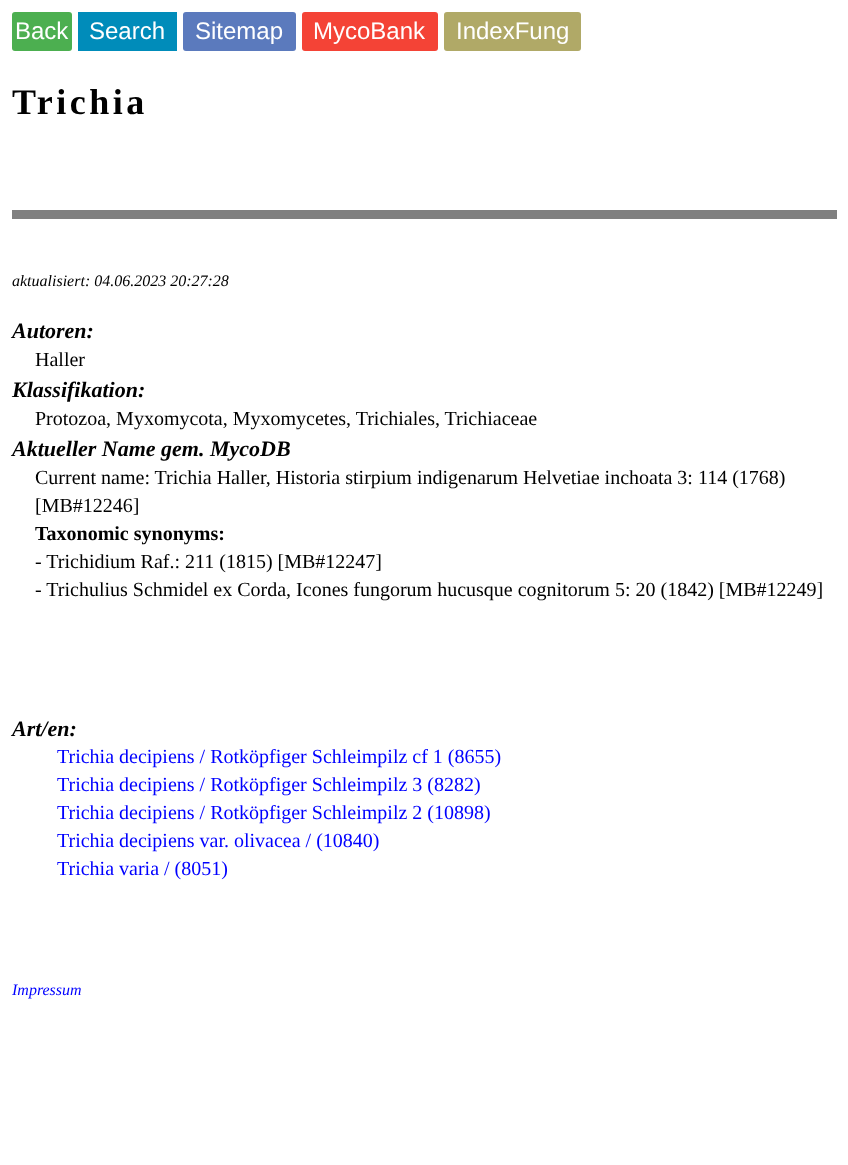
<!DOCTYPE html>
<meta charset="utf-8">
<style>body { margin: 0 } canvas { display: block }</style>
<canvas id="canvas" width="848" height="1165"></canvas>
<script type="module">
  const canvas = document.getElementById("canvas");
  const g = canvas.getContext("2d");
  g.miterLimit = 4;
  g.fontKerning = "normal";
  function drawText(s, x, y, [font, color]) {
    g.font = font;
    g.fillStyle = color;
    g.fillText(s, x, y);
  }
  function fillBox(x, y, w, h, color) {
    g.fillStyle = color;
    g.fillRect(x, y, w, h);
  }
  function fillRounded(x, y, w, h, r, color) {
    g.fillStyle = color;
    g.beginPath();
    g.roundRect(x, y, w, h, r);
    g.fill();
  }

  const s1 = ["24px Liberation Sans", "#FFFFFF"];
  const s2 = ["bold 36px Liberation Serif", "#000000"];
  const s3 = ["italic 16px Liberation Serif", "#000000"];
  const s4 = ["italic bold 22px Liberation Serif", "#000000"];
  const s5 = ["20px Liberation Serif", "#000000"];
  const s6 = ["bold 20px Liberation Serif", "#000000"];
  const s7 = ["20px Liberation Serif", "#0000FF"];
  const s8 = ["italic 16px Liberation Serif", "#0000FF"];

  fillBox(0, 0, 848, 1165, "#FFFFFF");
  fillRounded(12, 12, 60, 39, 3, "#4CAF50");
  drawText("Back", 15, 39, s1);
  fillBox(78, 12, 99, 39, "#008CBA");
  drawText("Search", 89, 39, s1);
  fillRounded(183, 12, 113, 39, 3, "#5B7ABD");
  drawText("Sitemap", 195, 39, s1);
  fillRounded(302, 12, 136, 39, 3, "#F44336");
  drawText("MycoBank", 313, 39, s1);
  fillRounded(444, 12, 137, 39, 3, "#B0A967");
  drawText("IndexFung", 456, 39, s1);
  g.letterSpacing = "3.5px";
  drawText("Trichia", 12, 114, s2);
  fillBox(12, 210, 825, 9, "#808080");
  g.letterSpacing = "0px";
  drawText("aktualisiert: 04.06.2023 20:27:28", 12, 286, s3);
  drawText("Autoren:", 12, 338, s4);
  drawText("Haller", 35, 366, s5);
  drawText("Klassifikation:", 12, 397, s4);
  drawText("Protozoa, Myxomycota, Myxomycetes, Trichiales, Trichiaceae", 35, 425, s5);
  drawText("Aktueller Name gem. MycoDB", 12, 456, s4);
  drawText("Current name: Trichia Haller, Historia stirpium indigenarum Helvetiae inchoata 3: 114 (1768)", 35, 484, s5);
  drawText("[MB#12246]", 35, 512, s5);
  drawText("Taxonomic synonyms:", 35, 540, s6);
  drawText("- Trichidium Raf.: 211 (1815) [MB#12247]", 35, 568, s5);
  drawText("- Trichulius Schmidel ex Corda, Icones fungorum hucusque cognitorum 5: 20 (1842) [MB#12249]", 35, 596, s5);
  drawText("Art/en:", 12, 736, s4);
  drawText("Trichia decipiens / Rotköpfiger Schleimpilz cf 1 (8655)", 57, 763, s7);
  drawText("Trichia decipiens / Rotköpfiger Schleimpilz 3 (8282)", 57, 791, s7);
  drawText("Trichia decipiens / Rotköpfiger Schleimpilz 2 (10898)", 57, 819, s7);
  drawText("Trichia decipiens var. olivacea / (10840)", 57, 847, s7);
  drawText("Trichia varia / (8051)", 57, 875, s7);
  drawText("Impressum", 12, 995, s8);
</script>
